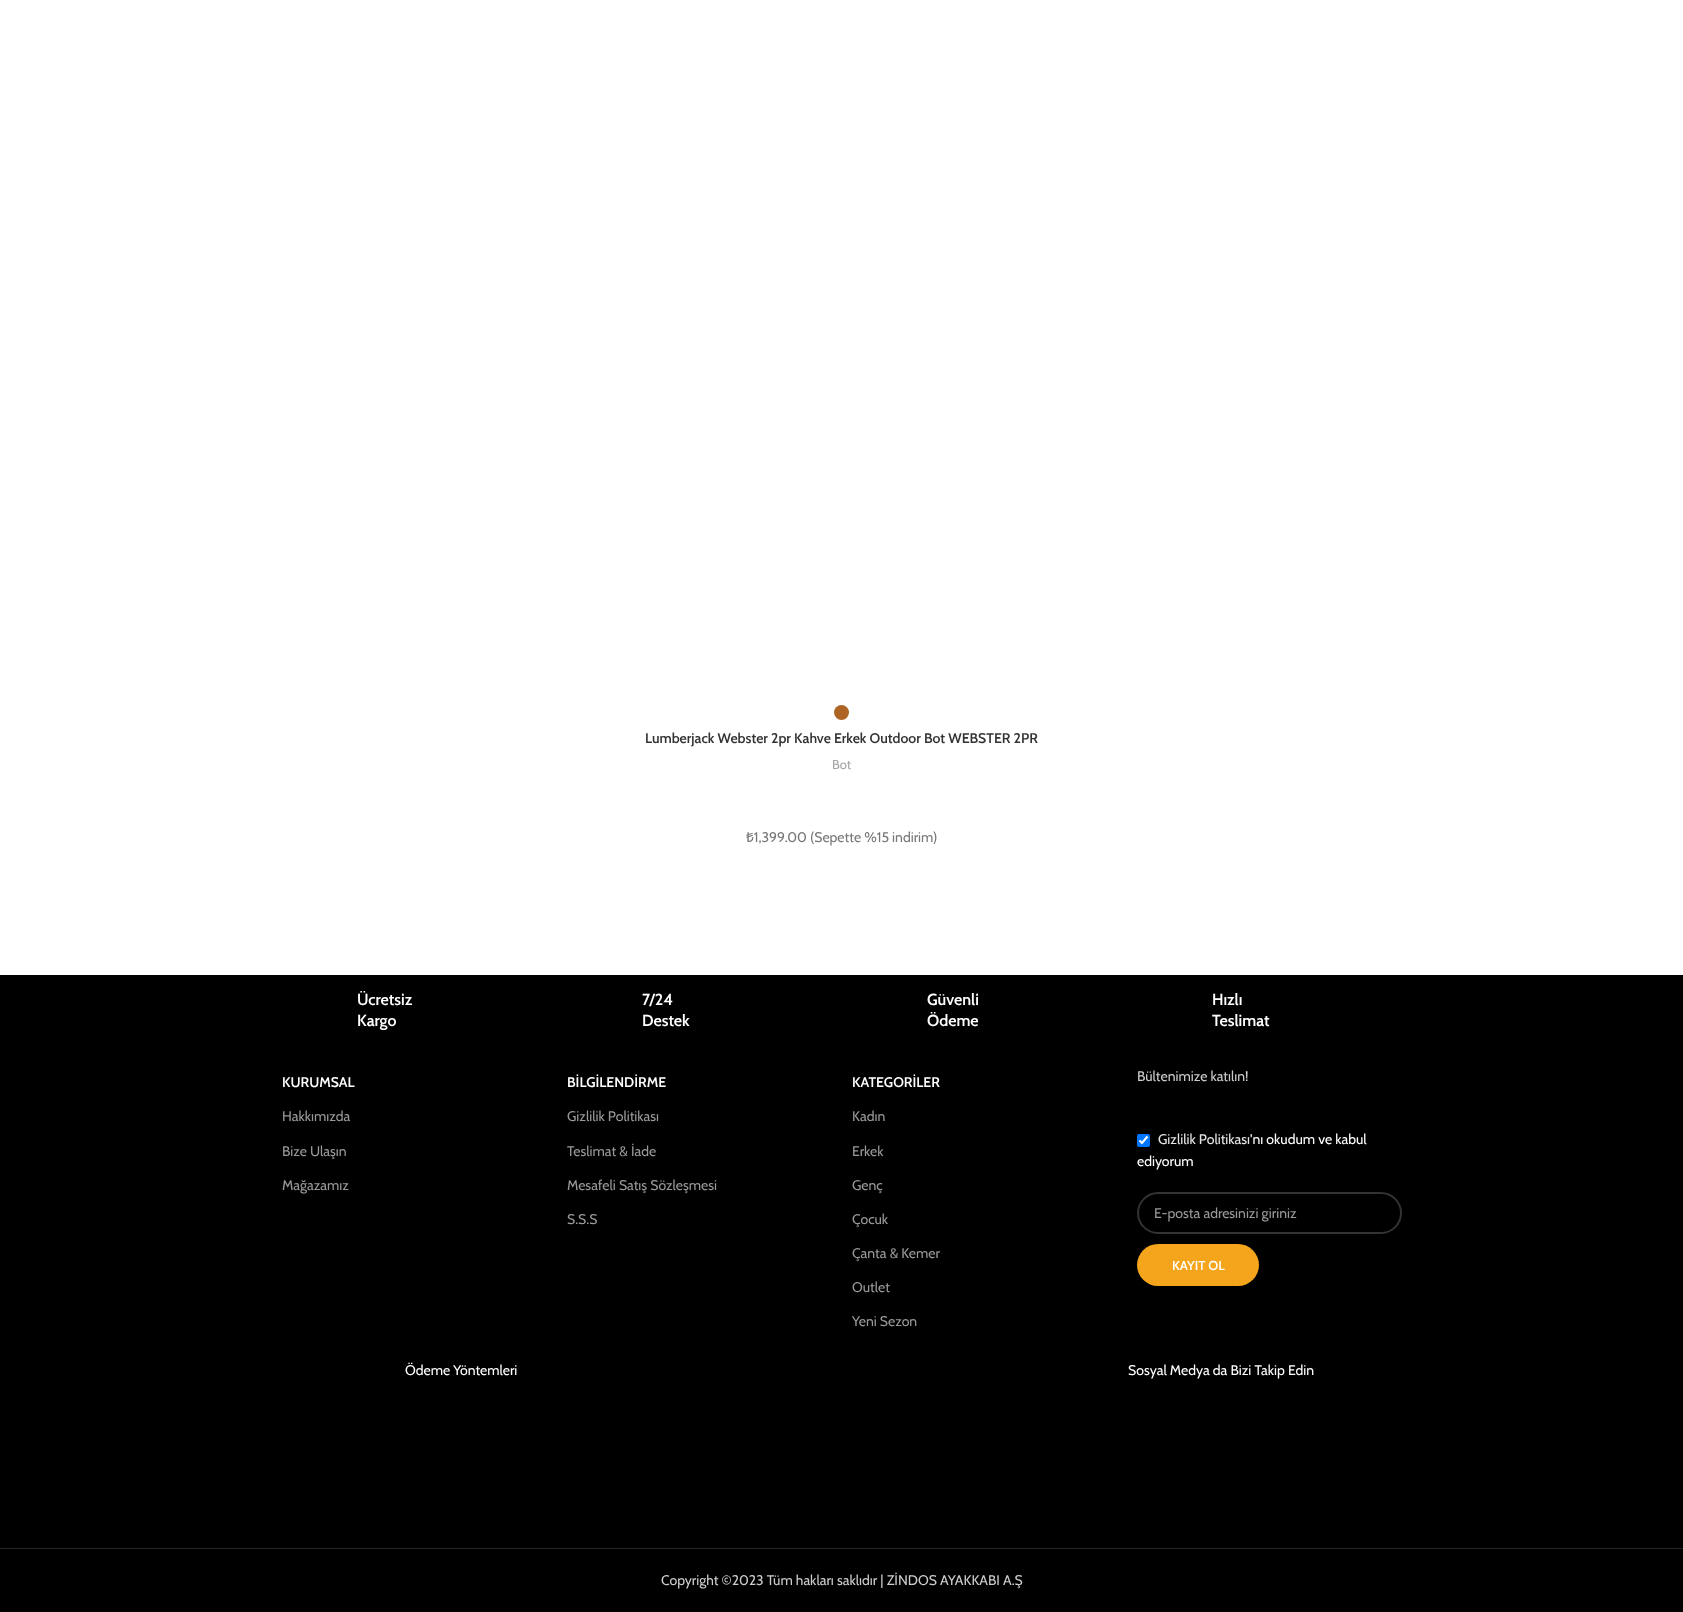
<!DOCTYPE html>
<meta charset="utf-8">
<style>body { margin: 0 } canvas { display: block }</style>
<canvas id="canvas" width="1683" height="1612"></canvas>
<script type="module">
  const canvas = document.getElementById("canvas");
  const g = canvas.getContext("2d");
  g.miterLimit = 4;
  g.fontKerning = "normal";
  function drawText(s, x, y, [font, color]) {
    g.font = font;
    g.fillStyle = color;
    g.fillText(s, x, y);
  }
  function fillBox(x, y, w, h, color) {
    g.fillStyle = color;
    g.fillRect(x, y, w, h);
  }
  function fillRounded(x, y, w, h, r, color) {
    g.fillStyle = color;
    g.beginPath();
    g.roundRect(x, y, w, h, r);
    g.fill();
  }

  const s1 = ["600 14px Cabin", "#333333"];
  const s2 = ["13px Cabin", "#A5A5A5"];
  const s3 = ["14px Cabin", "#777777"];
  const s4 = ["600 16px Cabin", "#FFFFFF"];
  const s5 = ["600 14px Cabin", "#FFFFFF"];
  const s6 = ["14px Cabin", "#999999"];
  const s7 = ["14px Cabin", "#CCCCCC"];
  const s8 = ["14px Cabin", "#E6E6E6"];
  const s9 = ["14px Cabin", "#FFFFFF"];
  const s10 = ["600 13px Cabin", "#FFFFFF"];

  fillBox(0, 0, 1683, 1612, "#FFFFFF");
  g.fillStyle = "#AD6424";
  g.beginPath();
  g.arc(841.5, 712.5, 7.5, 0, Math.PI * 2);
  g.fill();
  drawText("Lumberjack Webster 2pr Kahve Erkek Outdoor Bot WEBSTER 2PR", 645, 743, s1);
  drawText("Bot", 832, 769, s2);
  drawText("₺1,399.00 (Sepette %15 indirim)", 746, 842, s3);
  fillBox(0, 975, 1683, 637, "#000000");
  drawText("Ücretsiz", 357, 1005, s4);
  drawText("Kargo", 357, 1026, s4);
  drawText("7/24", 642, 1005, s4);
  drawText("Destek", 642, 1026, s4);
  drawText("Güvenli", 927, 1005, s4);
  drawText("Ödeme", 927, 1026, s4);
  drawText("Hızlı", 1212, 1005, s4);
  drawText("Teslimat", 1212, 1026, s4);
  drawText("KURUMSAL", 282, 1087, s5);
  drawText("Hakkımızda", 282, 1121, s6);
  drawText("Bize Ulaşın", 282, 1156, s6);
  drawText("Mağazamız", 282, 1190, s6);
  drawText("BİLGİLENDİRME", 567, 1087, s5);
  drawText("Gizlilik Politikası", 567, 1121, s6);
  drawText("Teslimat & İade", 567, 1156, s6);
  drawText("Mesafeli Satış Sözleşmesi", 567, 1190, s6);
  drawText("S.S.S", 567, 1224, s6);
  drawText("KATEGORİLER", 852, 1087, s5);
  drawText("Kadın", 852, 1121, s6);
  drawText("Erkek", 852, 1156, s6);
  drawText("Genç", 852, 1190, s6);
  drawText("Çocuk", 852, 1224, s6);
  drawText("Çanta & Kemer", 852, 1258, s6);
  drawText("Outlet", 852, 1292, s6);
  drawText("Yeni Sezon", 852, 1326, s6);
  drawText("Bültenimize katılın!", 1137, 1081, s7);
  fillRounded(1137, 1134, 13, 13, 2, "#0075FF");
  g.beginPath();
  g.moveTo(1139.5, 1140.5);
  g.lineTo(1142, 1143);
  g.lineTo(1147.5, 1136.5);
  g.strokeStyle = "#FFFFFF";
  g.lineWidth = 2.1;
  g.stroke();
  drawText("Gizlilik Politikası", 1158, 1144, s8);
  drawText("'nı okudum ve kabul", 1250, 1144, s9);
  drawText("ediyorum", 1137, 1166, s9);
  g.beginPath();
  g.roundRect(1138, 1193, 263, 40, 20);
  g.strokeStyle = "#333333";
  g.lineWidth = 2;
  g.stroke();
  drawText("E-posta adresinizi giriniz", 1154, 1218, s6);
  fillRounded(1137, 1244, 122, 42, 21, "#F4A51C");
  drawText("KAYIT OL", 1172, 1270, s10);
  drawText("Ödeme Yöntemleri", 405, 1375, s9);
  drawText("Sosyal Medya da Bizi Takip Edin", 1128, 1375, s9);
  fillBox(0, 1548, 1683, 1, "#262626");
  drawText("Copyright ©2023 Tüm hakları saklıdır | ZİNDOS AYAKKABI A.Ş", 661, 1585, s7);
</script>
